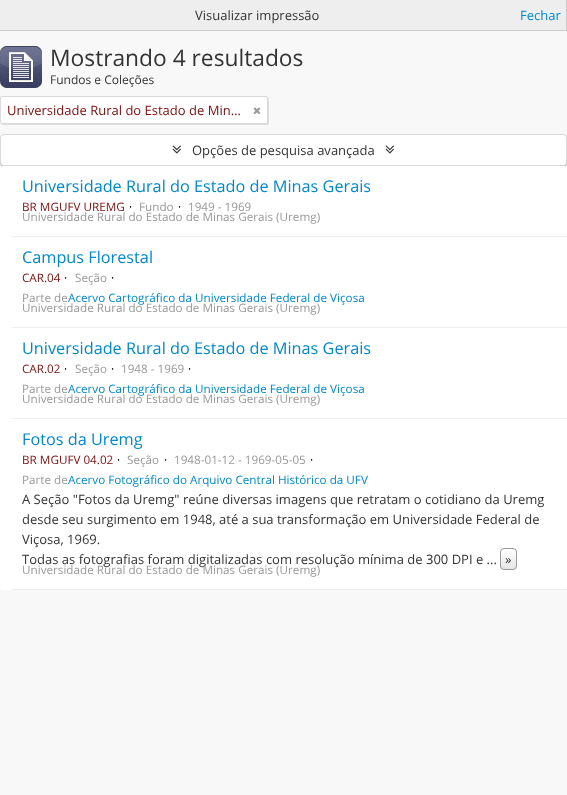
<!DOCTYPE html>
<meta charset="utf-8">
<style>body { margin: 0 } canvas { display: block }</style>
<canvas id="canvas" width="567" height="795"></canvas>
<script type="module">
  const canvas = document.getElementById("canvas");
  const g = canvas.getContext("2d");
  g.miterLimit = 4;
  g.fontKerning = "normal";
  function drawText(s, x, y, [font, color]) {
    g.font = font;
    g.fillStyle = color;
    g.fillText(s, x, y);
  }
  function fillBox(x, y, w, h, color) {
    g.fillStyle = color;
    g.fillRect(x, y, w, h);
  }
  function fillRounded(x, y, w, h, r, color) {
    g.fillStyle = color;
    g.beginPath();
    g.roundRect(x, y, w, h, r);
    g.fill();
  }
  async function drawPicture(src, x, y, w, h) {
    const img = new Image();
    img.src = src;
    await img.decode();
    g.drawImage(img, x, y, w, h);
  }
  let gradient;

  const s1 = ["13px Open Sans", "#333333"];
  const s2 = ["13px Open Sans", "#0088CC"];
  const s3 = ["22.75px Open Sans", "#333333"];
  const s4 = ["12px Open Sans", "#333333"];
  const s5 = ["13px Open Sans", "#7A0D0C"];
  const s6 = ["16.25px Open Sans", "#0088CC"];
  const s7 = ["11.7px Open Sans", "#7A0D0C"];
  const s8 = ["11.7px Open Sans", "#000000"];
  const s9 = ["11.7px Open Sans", "#999999"];
  const s10 = ["11.7px Open Sans", "#0088CC"];

  fillBox(0, 0, 567, 795, "#F8F8F8");
  fillBox(0, 0, 566, 30, "#EEEEEE");
  fillBox(566, 0, 1, 31, "#CCCCCC");
  fillBox(0, 30, 567, 1, "#CCCCCC");
  drawText("Visualizar impressão", 195, 20, s1);
  drawText("Fechar", 520, 20, s2);
  await drawPicture("pic1.png", 0, 46, 42, 42);
  drawText("Mostrando 4 resultados", 50, 66, s3);
  drawText("Fundos e Coleções", 50, 84, s4);
  g.fillStyle = "rgba(0, 0, 0, 0.1)";
  g.filter = "blur(0.5px)";
  g.beginPath();
  g.roundRect(1, 97, 268, 28, 2);
  g.fill();
  g.filter = "none";
  g.fillStyle = "#FFFFFF";
  g.beginPath();
  g.roundRect(0.5, 96.5, 267, 27, 1.5);
  g.fill();
  g.strokeStyle = "#D9D9D9";
  g.stroke();
  drawText("Universidade Rural do Estado de Min…", 7, 115, s5);
  await drawPicture("pic2.png", 253, 107, 8, 7);
  g.fillStyle = "rgba(0, 0, 0, 0.2)";
  g.filter = "blur(0.5px)";
  g.beginPath();
  g.roundRect(0, 135, 567, 32, 4);
  g.fill();
  g.filter = "none";
  g.fillStyle = "#FFFFFF";
  g.beginPath();
  g.roundRect(0.5, 134.5, 566, 31, 3.5);
  g.fill();
  g.stroke();
  await drawPicture("pic3.png", 172, 145, 9, 9);
  drawText("Opções de pesquisa avançada", 192, 155, s1);
  await drawPicture("pic3.png", 385, 145, 9, 9);
  fillRounded(0, 166, 567, 424, 4, "#FFFFFF");
  fillBox(12, 236, 555, 1, "#EEEEEE");
  drawText("Universidade Rural do Estado de Minas Gerais", 22, 192, s6);
  drawText("BR MGUFV UREMG", 22, 211, s7);
  drawText("·", 129, 211, s8);
  drawText("Fundo", 139, 211, s9);
  drawText("·", 178, 211, s8);
  drawText("1949 - 1969", 188, 211, s9);
  drawText("Universidade Rural do Estado de Minas Gerais (Uremg)", 22, 221, s9);
  fillBox(12, 327, 555, 1, "#EEEEEE");
  drawText("Campus Florestal", 22, 263, s6);
  drawText("CAR.04", 22, 282, s7);
  drawText("·", 64, 282, s8);
  drawText("Seção", 75, 282, s9);
  drawText("·", 111, 282, s8);
  drawText("Parte de", 22, 302, s9);
  drawText("Acervo Cartográfico da Universidade Federal de Viçosa", 68, 302, s10);
  drawText("Universidade Rural do Estado de Minas Gerais (Uremg)", 22, 312, s9);
  fillBox(12, 418, 555, 1, "#EEEEEE");
  drawText("Universidade Rural do Estado de Minas Gerais", 22, 354, s6);
  drawText("CAR.02", 22, 373, s7);
  drawText("·", 64, 373, s8);
  drawText("Seção", 75, 373, s9);
  drawText("·", 111, 373, s8);
  drawText("1948 - 1969", 121, 373, s9);
  drawText("·", 188, 373, s8);
  drawText("Parte de", 22, 393, s9);
  drawText("Acervo Cartográfico da Universidade Federal de Viçosa", 68, 393, s10);
  drawText("Universidade Rural do Estado de Minas Gerais (Uremg)", 22, 403, s9);
  fillBox(12, 589, 555, 1, "#EEEEEE");
  drawText("Fotos da Uremg", 22, 445, s6);
  drawText("BR MGUFV 04.02", 22, 464, s7);
  drawText("·", 117, 464, s8);
  drawText("Seção", 127, 464, s9);
  drawText("·", 164, 464, s8);
  drawText("1948-01-12 - 1969-05-05", 174, 464, s9);
  drawText("·", 310, 464, s8);
  drawText("Parte de", 22, 484, s9);
  drawText("Acervo Fotográfico do Arquivo Central Histórico da UFV", 68, 484, s10);
  drawText("A Seção \"Fotos da Uremg\" reúne diversas imagens que retratam o cotidiano da Uremg", 22, 504, s1);
  drawText("desde seu surgimento em 1948, até a sua transformação em Universidade Federal de", 22, 524, s1);
  drawText("Viçosa, 1969.", 22, 544, s1);
  drawText("Todas as fotografias foram digitalizadas com resolução mínima de 300 DPI e ...", 22, 564, s1);
  g.save();
  g.beginPath();
  g.roundRect(500, 548, 17, 22, 4);
  g.clip();
  gradient = g.createLinearGradient(509, 549, 509, 569);
  gradient.addColorStop(0, "#FFFFFF");
  gradient.addColorStop(1, "#E6E6E6");
  g.fillStyle = gradient;
  g.fillRect(500, 549, 17, 20);
  g.restore();
  g.beginPath();
  g.roundRect(500.5, 548.5, 16, 21, 3.5);
  g.strokeStyle = "#999999";
  g.stroke();
  drawText("»", 505, 564, s1);
  drawText("Universidade Rural do Estado de Minas Gerais (Uremg)", 22, 574, s9);
</script>
